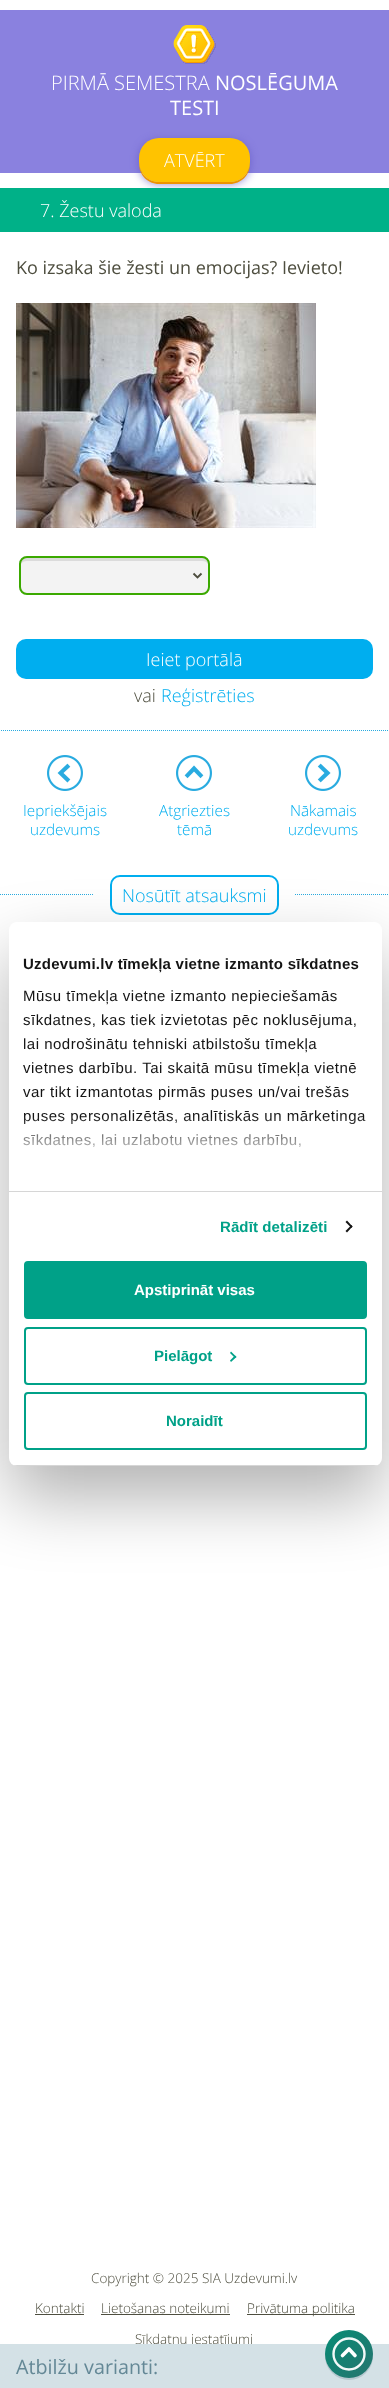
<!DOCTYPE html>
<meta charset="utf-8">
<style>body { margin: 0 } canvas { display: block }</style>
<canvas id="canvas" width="389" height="2388"></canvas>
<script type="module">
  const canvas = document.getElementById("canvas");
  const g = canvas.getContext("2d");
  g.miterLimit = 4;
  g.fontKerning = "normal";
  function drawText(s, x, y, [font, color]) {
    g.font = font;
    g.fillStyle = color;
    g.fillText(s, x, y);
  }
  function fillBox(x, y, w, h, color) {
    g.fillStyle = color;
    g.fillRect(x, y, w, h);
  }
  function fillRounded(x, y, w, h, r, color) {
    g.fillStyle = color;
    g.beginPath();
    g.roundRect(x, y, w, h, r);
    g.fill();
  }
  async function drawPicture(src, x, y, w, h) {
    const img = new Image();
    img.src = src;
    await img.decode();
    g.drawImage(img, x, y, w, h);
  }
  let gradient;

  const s1 = ["300 20px Open Sans", "#FFFFFF"];
  const s2 = ["20px Open Sans", "#FFFFFF"];
  const s3 = ["300 18px Open Sans", "#FFFFFF"];
  const s4 = ["18px Open Sans", "#4E4E3F"];
  const s5 = ["300 13.5px Open Sans", "#4E4E3F"];
  const s6 = ["19.75px Open Sans", "#648896"];
  const s7 = ["300 18px Open Sans", "#4E4E3F"];
  const s8 = ["300 18px Open Sans", "#00AEEF"];
  const s9 = ["300 15.25px Open Sans", "#00AEEF"];
  const s10 = ["bold 15px Liberation Sans", "#141414"];
  const s11 = ["15px Liberation Sans", "#141414"];
  const s12 = ["bold 15px Liberation Sans", "#00A188"];
  const s13 = ["bold 15px Liberation Sans", "#FFFFFF"];

  fillBox(0, 0, 389, 2388, "#FFFFFF");
  fillBox(0, 10, 389, 163, "#8A81DF");
  await drawPicture("pic1.png", 173, 25, 43, 39);
  drawText("PIRMĀ SEMESTRA", 51, 90, s1);
  drawText("NOSLĒGUMA", 215, 90, s2);
  drawText("TESTI", 170, 115, s2);
  g.fillStyle = "rgba(95, 85, 195, 0.7)";
  g.filter = "blur(4px)";
  g.beginPath();
  g.roundRect(139, 140, 111, 44, 20);
  g.fill();
  g.filter = "none";
  g.fillStyle = "#EE9300";
  g.beginPath();
  g.moveTo(139, 162);
  g.lineTo(139, 164);
  g.bezierCurveTo(139, 175, 148, 184, 159, 184);
  g.lineTo(230, 184);
  g.bezierCurveTo(241, 184, 250, 175, 250, 164);
  g.lineTo(250, 162);
  g.bezierCurveTo(250, 173, 241, 182, 230, 182);
  g.lineTo(159, 182);
  g.bezierCurveTo(148, 182, 139, 173, 139, 162);
  g.closePath();
  g.fill();
  fillRounded(139, 138, 111, 44, 20, "#FFC300");
  drawText("ATVĒRT", 164, 167, s3);
  fillBox(0, 188, 389, 44, "#00B188");
  drawText("7. Žestu valoda", 40, 217, s3);
  drawText("Ko izsaka šie žesti un emocijas? Ievieto!", 16, 274, s4);
  await drawPicture("pic2.png", 16, 303, 300, 225);
  fillRounded(19, 556, 191, 39, 8, "#F3F3F3");
  g.beginPath();
  g.moveTo(201.5, 573.5);
  g.lineTo(197.5, 577.5);
  g.lineTo(193.5, 573.5);
  g.strokeStyle = "#4E4E3F";
  g.lineWidth = 1.9;
  g.stroke();
  g.fillStyle = "#DBDBDB";
  g.beginPath();
  g.moveTo(27, 561);
  g.lineTo(202, 561);
  g.bezierCurveTo(205, 561, 207, 562, 208, 564);
  g.bezierCurveTo(208, 561, 205, 558, 202, 558);
  g.lineTo(27, 558);
  g.bezierCurveTo(24, 558, 21, 561, 21, 564);
  g.bezierCurveTo(22, 562, 24, 561, 27, 561);
  g.closePath();
  g.fill();
  g.beginPath();
  g.roundRect(20, 557, 189, 37, 7);
  g.strokeStyle = "#3BA900";
  g.lineWidth = 2;
  g.stroke();
  drawText("Sīkdatņu iestatījumi", 135, 2344, s5);
  fillBox(0, 2344, 389, 44, "#D4E1E6");
  drawText("Atbilžu varianti:", 16, 2374, s6);
  g.fillStyle = "rgba(65, 100, 114, 0.2)";
  g.beginPath();
  g.arc(349, 2356, 24, 0, Math.PI * 2);
  g.fill();
  gradient = g.createLinearGradient(320, 2324, 370, 2375);
  gradient.addColorStop(0, "#019076");
  gradient.addColorStop(0.41, "#118473");
  gradient.addColorStop(1, "#25766F");
  g.fillStyle = gradient;
  g.beginPath();
  g.arc(349, 2354, 24, 0, Math.PI * 2);
  g.fill();
  g.beginPath();
  g.arc(349, 2354, 15.5, 0, Math.PI * 2);
  g.strokeStyle = "rgba(255, 255, 255, 0.95)";
  g.lineWidth = 2.4;
  g.stroke();
  g.beginPath();
  g.moveTo(342.5, 2355.5);
  g.lineTo(349, 2349);
  g.lineTo(355, 2355.5);
  g.strokeStyle = "#FFFFFF";
  g.lineWidth = 3.6;
  g.lineCap = "round";
  g.lineJoin = "round";
  g.stroke();
  fillRounded(16, 639, 357, 40, 10, "#00AEEF");
  drawText("Ieiet portālā", 146, 666, s3);
  drawText("vai", 134, 702, s7);
  drawText("Reģistrēties", 161, 702, s8);
  g.beginPath();
  g.moveTo(1, 730.5);
  g.lineTo(388, 730.5);
  g.strokeStyle = "#29ABE0";
  g.lineWidth = 1;
  g.lineCap = "butt";
  g.lineJoin = "miter";
  g.setLineDash([1, 1]);
  g.stroke();
  await drawPicture("pic3.png", 47, 755, 36, 36);
  drawText("Iepriekšējais", 23, 816, s9);
  drawText("uzdevums", 30, 835, s9);
  await drawPicture("pic4.png", 176, 755, 36, 36);
  drawText("Atgriezties", 159, 816, s9);
  drawText("tēmā", 177, 835, s9);
  await drawPicture("pic5.png", 305, 755, 36, 36);
  drawText("Nākamais", 290, 816, s9);
  drawText("uzdevums", 288, 835, s9);
  g.beginPath();
  g.moveTo(0, 894.5);
  g.lineTo(94, 894.5);
  g.stroke();
  g.beginPath();
  g.roundRect(111, 876, 167, 38, 9);
  g.strokeStyle = "#00AEEF";
  g.lineWidth = 2;
  g.setLineDash([]);
  g.stroke();
  drawText("Nosūtīt atsauksmi", 122, 902, s8);
  g.beginPath();
  g.moveTo(295, 894.5);
  g.lineTo(389, 894.5);
  g.strokeStyle = "#29ABE0";
  g.lineWidth = 1;
  g.setLineDash([1, 1]);
  g.stroke();
  drawText("Copyright © 2025 SIA Uzdevumi.lv", 91, 2283, s5);
  drawText("Kontakti", 35, 2313, s5);
  fillBox(35, 2314, 49, 1, "#4E4E3F");
  drawText("Lietošanas noteikumi", 101, 2313, s5);
  fillBox(101, 2314, 129, 1, "#4E4E3F");
  fillBox(247, 2314, 108, 1, "#4E4E3F");
  drawText("Privātuma politika", 247, 2313, s5);
  g.fillStyle = "rgba(0, 0, 0, 0.3)";
  g.filter = "blur(34px)";
  g.beginPath();
  g.roundRect(9, 954, 373, 544, 8);
  g.fill();
  g.filter = "none";
  fillRounded(9, 922, 373, 544, 8, "#FFFFFF");
  fillBox(9, 1191, 373, 1, "#D6D6D6");
  g.letterSpacing = "0.25px";
  drawText("Uzdevumi.lv tīmekļa vietne izmanto sīkdatnes", 23, 969, s10);
  g.letterSpacing = "0.5px";
  drawText("Mūsu tīmekļa vietne izmanto nepieciešamās", 23, 1001, s11);
  drawText("sīkdatnes, kas tiek izvietotas pēc noklusējuma,", 23, 1025, s11);
  drawText("lai nodrošinātu tehniski atbilstošu tīmekļa", 23, 1049, s11);
  drawText("vietnes darbību. Tai skaitā mūsu tīmekļa vietnē", 23, 1073, s11);
  drawText("var tikt izmantotas pirmās puses un/vai trešās", 23, 1097, s11);
  drawText("puses personalizētās, analītiskās un mārketinga", 23, 1121, s11);
  drawText("sīkdatnes, lai uzlabotu vietnes darbību,", 23, 1145, s11);
  gradient = g.createLinearGradient(189, 1191, 189, 1116);
  gradient.addColorStop(0, "#FFFFFF");
  gradient.addColorStop(0.5, "rgba(255, 255, 255, 0.8)");
  gradient.addColorStop(1, "rgba(255, 255, 255, 0)");
  g.fillStyle = gradient;
  g.fillRect(23, 1117, 343, 30);
  g.letterSpacing = "0.1px";
  drawText("Rādīt detalizēti", 220, 1232, s12);
  g.fillStyle = "#141414";
  g.beginPath();
  g.moveTo(347, 1220.5);
  g.lineTo(352.5, 1226.5);
  g.lineTo(351.5, 1228);
  g.lineTo(345.5, 1222);
  g.closePath();
  g.fill();
  g.beginPath();
  g.moveTo(351.5, 1225);
  g.lineTo(352.5, 1226.5);
  g.lineTo(347, 1232.5);
  g.lineTo(345.5, 1231);
  g.closePath();
  g.fill();
  g.save();
  g.beginPath();
  g.roundRect(9, 922, 373, 544, 8);
  g.clip();
  fillBox(9, 1465, 373, 1, "#D6D6D6");
  g.restore();
  g.fillStyle = "#00A188";
  g.beginPath();
  g.roundRect(25, 1262, 341, 56, 3);
  g.fill();
  g.strokeStyle = "#00A188";
  g.lineWidth = 2;
  g.setLineDash([]);
  g.stroke();
  g.letterSpacing = "0px";
  drawText("Apstiprināt visas", 134, 1295, s13);
  g.beginPath();
  g.roundRect(25, 1328, 341, 56, 3);
  g.stroke();
  drawText("Pielāgot", 154, 1361, s12);
  g.beginPath();
  g.moveTo(231, 1351.5);
  g.lineTo(236.5, 1357);
  g.lineTo(235, 1358);
  g.lineTo(230, 1353);
  g.closePath();
  g.fill();
  g.beginPath();
  g.moveTo(235, 1355.5);
  g.lineTo(236.5, 1357);
  g.lineTo(231, 1362);
  g.lineTo(230, 1360.5);
  g.closePath();
  g.fill();
  g.beginPath();
  g.roundRect(25, 1393, 341, 56, 3);
  g.stroke();
  drawText("Noraidīt", 166, 1426, s12);
</script>
